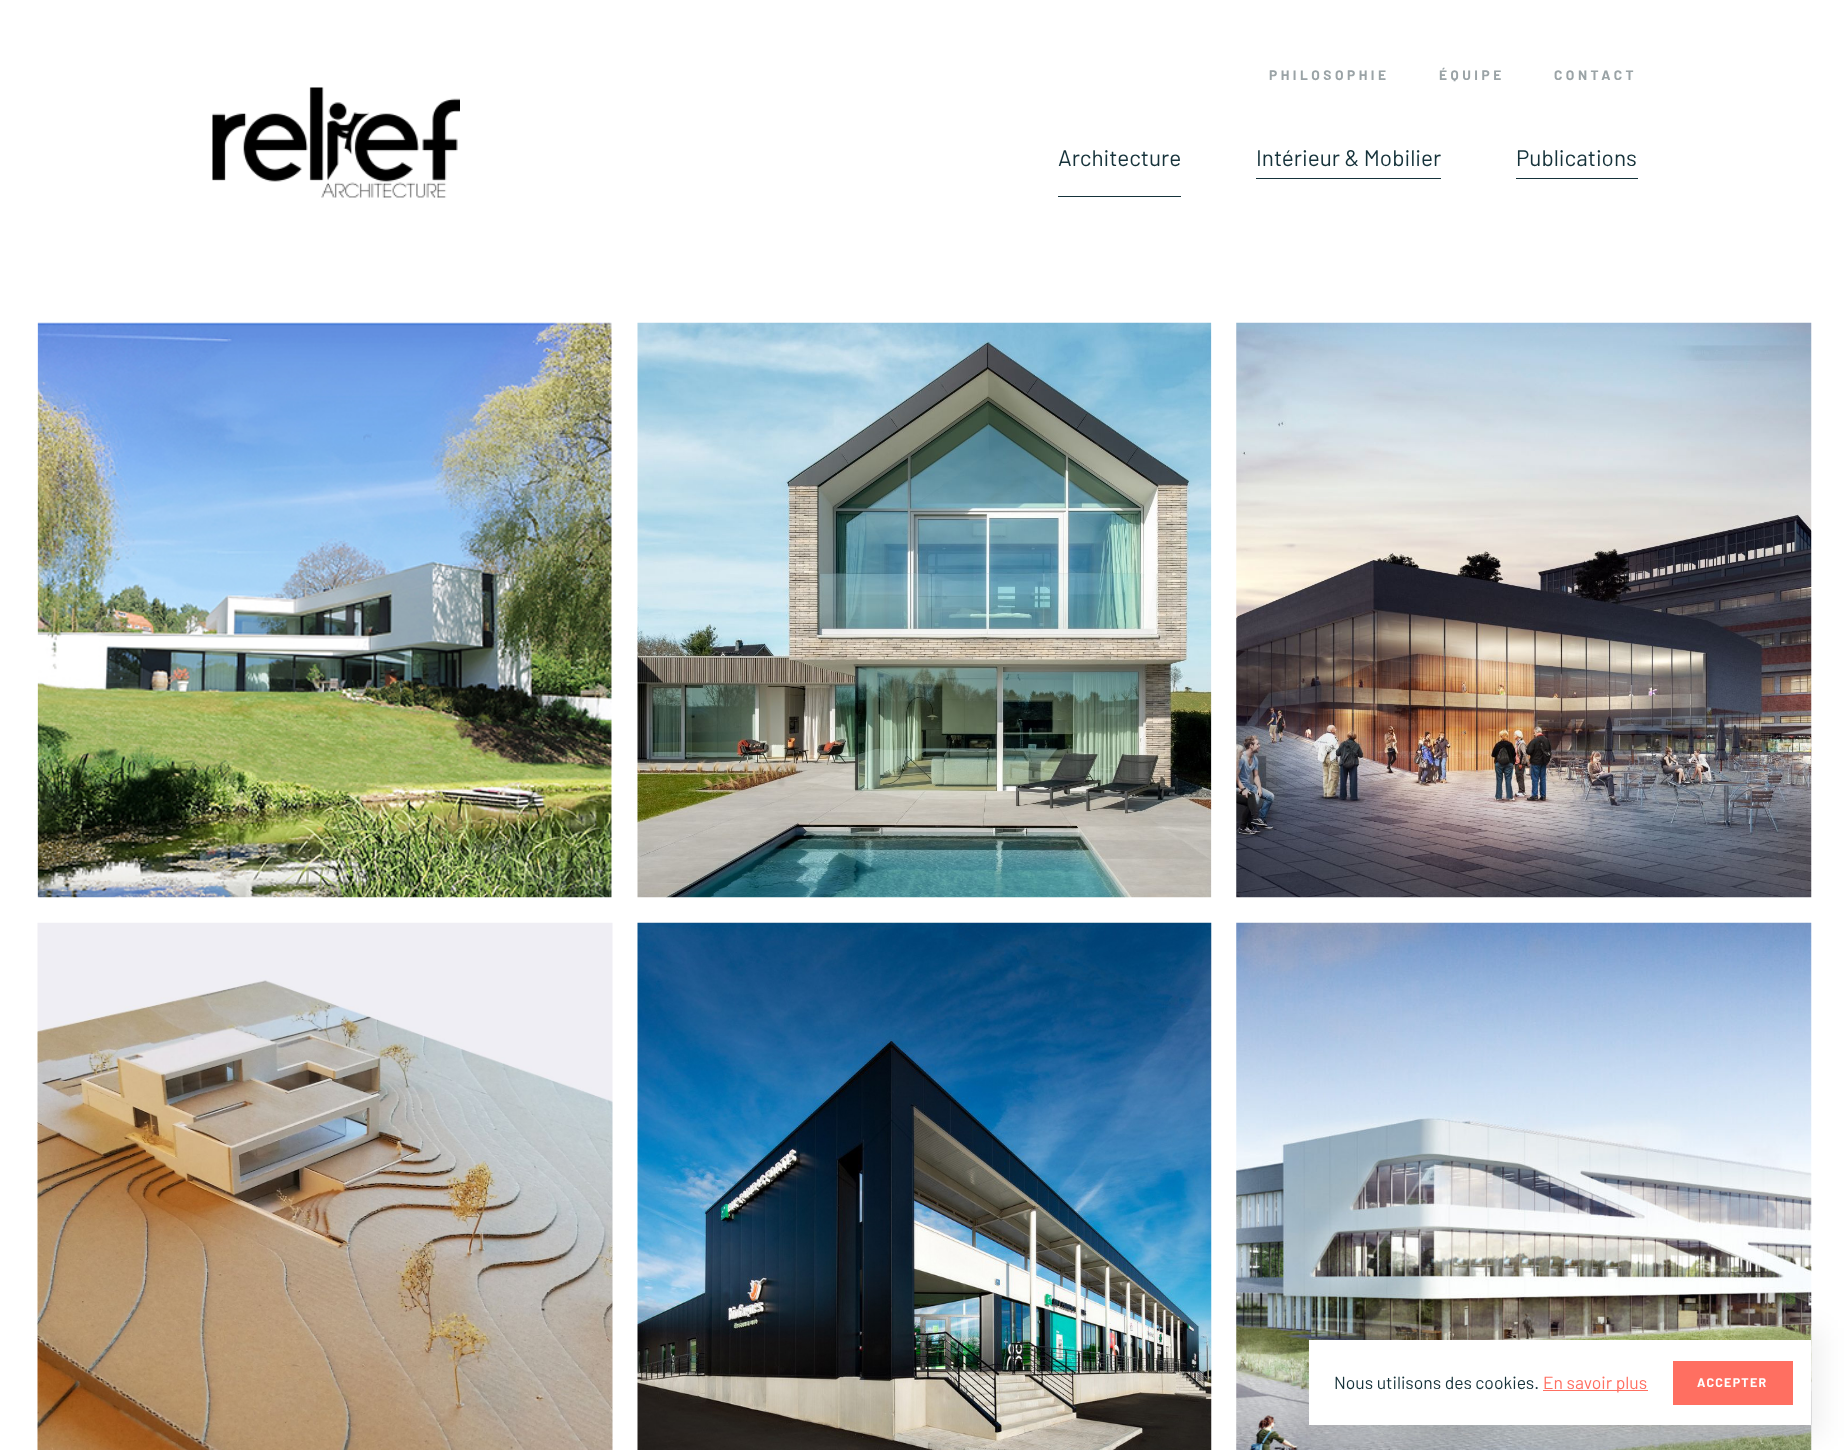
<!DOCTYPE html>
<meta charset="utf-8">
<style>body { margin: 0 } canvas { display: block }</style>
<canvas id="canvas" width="1848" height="1450"></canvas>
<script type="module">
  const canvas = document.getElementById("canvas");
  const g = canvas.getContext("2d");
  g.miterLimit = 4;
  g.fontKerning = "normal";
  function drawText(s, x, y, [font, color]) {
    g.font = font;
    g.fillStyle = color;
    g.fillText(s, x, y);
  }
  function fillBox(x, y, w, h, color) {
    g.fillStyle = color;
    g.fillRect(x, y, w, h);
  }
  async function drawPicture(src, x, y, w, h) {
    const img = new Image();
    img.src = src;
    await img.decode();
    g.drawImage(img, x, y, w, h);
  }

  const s1 = ["bold 13.75px Barlow", "#9AA3A6"];
  const s2 = ["22.5px Barlow", "#15323A"];
  const s3 = ["17.5px Barlow", "#15323A"];
  const s4 = ["17.5px Barlow", "#FF6F61"];
  const s5 = ["bold 12.5px Barlow", "#FFFFFF"];

  fillBox(0, 0, 1848, 1450, "#FFFFFF");
  await drawPicture("pic1.png", 212, 87, 248, 111);
  g.letterSpacing = "3.5px";
  drawText("PHILOSOPHIE", 1269, 80, s1);
  drawText("ÉQUIPE", 1439, 80, s1);
  drawText("CONTACT", 1554, 80, s1);
  g.letterSpacing = "0px";
  drawText("Architecture", 1058, 166, s2);
  fillBox(1058, 196, 123, 1, "#15323A");
  drawText("Intérieur & Mobilier", 1256, 166, s2);
  fillBox(1256, 178, 185, 1, "#15323A");
  drawText("Publications", 1516, 166, s2);
  fillBox(1516, 178, 122, 1, "#15323A");
  await drawPicture("pic2.png", 37, 322, 575, 576);
  await drawPicture("pic3.png", 637, 322, 575, 576);
  await drawPicture("pic4.png", 1236, 322, 576, 576);
  await drawPicture("pic5.png", 37, 922, 576, 528);
  await drawPicture("pic6.png", 637, 922, 575, 528);
  await drawPicture("pic7.png", 1236, 922, 576, 528);
  g.fillStyle = "rgba(0, 0, 0, 0.05)";
  g.filter = "blur(12.5px)";
  g.beginPath();
  g.rect(1296, 1328, 528, 110);
  g.fill();
  g.filter = "none";
  fillBox(1309, 1340, 502, 85, "#FFFFFF");
  drawText("Nous utilisons des cookies.", 1334, 1389, s3);
  fillBox(1543, 1390, 105, 1, "#FF6F61");
  drawText("En savoir plus", 1543, 1389, s4);
  fillBox(1673, 1361, 120, 44, "#FF6F61");
  g.letterSpacing = "1.25px";
  drawText("ACCEPTER", 1697, 1387, s5);
</script>
